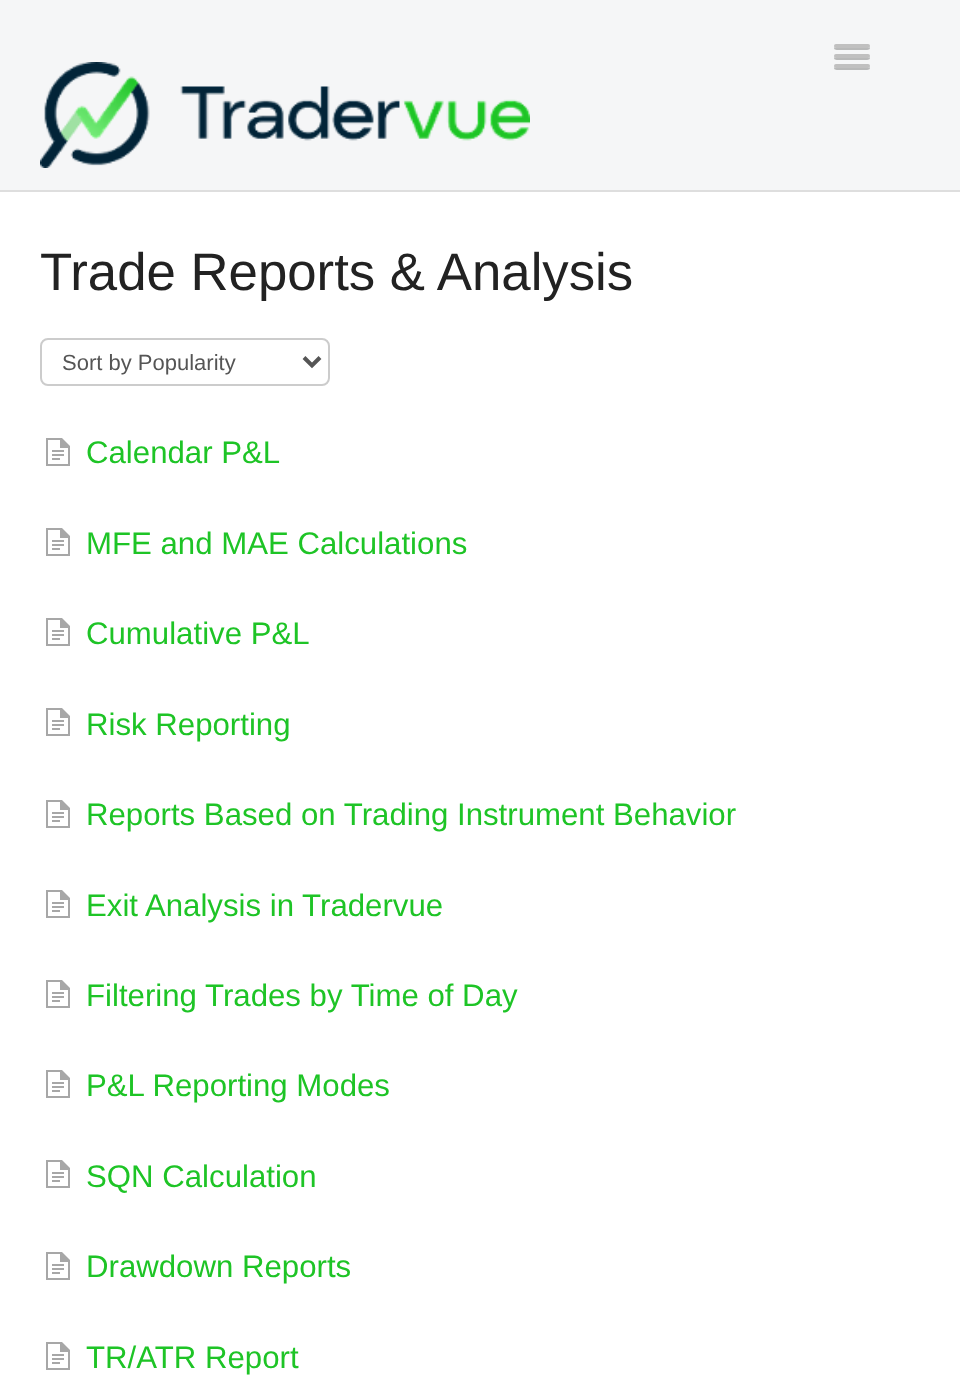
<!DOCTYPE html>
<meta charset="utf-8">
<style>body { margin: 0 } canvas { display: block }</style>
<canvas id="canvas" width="960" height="1394"></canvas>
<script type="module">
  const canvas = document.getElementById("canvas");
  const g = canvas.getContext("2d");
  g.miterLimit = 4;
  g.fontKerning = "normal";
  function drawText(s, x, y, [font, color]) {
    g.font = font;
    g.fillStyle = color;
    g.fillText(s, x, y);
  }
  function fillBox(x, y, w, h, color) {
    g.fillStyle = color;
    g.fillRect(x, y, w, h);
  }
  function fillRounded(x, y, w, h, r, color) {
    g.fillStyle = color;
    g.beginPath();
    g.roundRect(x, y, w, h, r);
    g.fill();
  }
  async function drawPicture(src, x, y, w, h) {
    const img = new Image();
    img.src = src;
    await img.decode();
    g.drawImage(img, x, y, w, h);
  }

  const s1 = ["52.75px Liberation Sans", "#222222"];
  const s2 = ["22px Liberation Sans", "#555555"];
  const s3 = ["31.2px Liberation Sans", "#1EC426"];

  fillBox(0, 0, 960, 1394, "#F5F6F7");
  g.fillStyle = "#B8B9B9";
  g.beginPath();
  g.moveTo(834.5, 47);
  g.bezierCurveTo(832, 51, 841, 50, 841.5, 50);
  g.lineTo(862.5, 50);
  g.bezierCurveTo(863, 50, 872, 51, 869.5, 47);
  g.bezierCurveTo(869.5, 47.5, 868.5, 48, 868, 48);
  g.lineTo(836, 48);
  g.bezierCurveTo(835.5, 48, 834.5, 47.5, 834.5, 47);
  g.closePath();
  g.fill();
  fillRounded(834, 44, 36, 4, 2, "#C0C0C0");
  g.fillStyle = "#B8B9B9";
  g.beginPath();
  g.moveTo(834.5, 57);
  g.bezierCurveTo(832, 61, 841, 60, 841.5, 60);
  g.lineTo(862.5, 60);
  g.bezierCurveTo(863, 60, 872, 61, 869.5, 57);
  g.bezierCurveTo(869.5, 57.5, 868.5, 58, 868, 58);
  g.lineTo(836, 58);
  g.bezierCurveTo(835.5, 58, 834.5, 57.5, 834.5, 57);
  g.closePath();
  g.fill();
  fillRounded(834, 54, 36, 4, 2, "#C0C0C0");
  g.fillStyle = "#B8B9B9";
  g.beginPath();
  g.moveTo(834.5, 67);
  g.bezierCurveTo(832, 71, 841, 70, 841.5, 70);
  g.lineTo(862.5, 70);
  g.bezierCurveTo(863, 70, 872, 71, 869.5, 67);
  g.bezierCurveTo(869.5, 67.5, 868.5, 68, 868, 68);
  g.lineTo(836, 68);
  g.bezierCurveTo(835.5, 68, 834.5, 67.5, 834.5, 67);
  g.closePath();
  g.fill();
  fillRounded(834, 64, 36, 4, 2, "#C0C0C0");
  await drawPicture("pic1.png", 40, 62, 490, 106);
  fillBox(0, 192, 960, 1202, "#FFFFFF");
  fillBox(0, 190, 960, 2, "#DEDEDE");
  drawText("Trade Reports & Analysis", 40, 290, s1);
  g.beginPath();
  g.roundRect(41, 339, 288, 46, 7);
  g.strokeStyle = "#CCCCCC";
  g.lineWidth = 2;
  g.stroke();
  g.beginPath();
  g.moveTo(304, 357.5);
  g.lineTo(312, 365.5);
  g.lineTo(320, 357.5);
  g.strokeStyle = "#555555";
  g.lineWidth = 4;
  g.stroke();
  drawText("Sort by Popularity", 62, 370, s2);
  await drawPicture("pic2.png", 46, 438, 24, 28);
  drawText("Calendar P&L", 86, 463, s3);
  await drawPicture("pic2.png", 46, 528, 24, 28);
  drawText("MFE and MAE Calculations", 86, 554, s3);
  await drawPicture("pic2.png", 46, 618, 24, 28);
  drawText("Cumulative P&L", 86, 644, s3);
  await drawPicture("pic2.png", 46, 708, 24, 28);
  drawText("Risk Reporting", 86, 735, s3);
  await drawPicture("pic2.png", 46, 800, 24, 28);
  drawText("Reports Based on Trading Instrument Behavior", 86, 825, s3);
  await drawPicture("pic2.png", 46, 890, 24, 28);
  drawText("Exit Analysis in Tradervue", 86, 916, s3);
  await drawPicture("pic2.png", 46, 980, 24, 28);
  drawText("Filtering Trades by Time of Day", 86, 1006, s3);
  await drawPicture("pic2.png", 46, 1070, 24, 28);
  drawText("P&L Reporting Modes", 86, 1096, s3);
  await drawPicture("pic2.png", 46, 1160, 24, 28);
  drawText("SQN Calculation", 86, 1187, s3);
  await drawPicture("pic2.png", 46, 1252, 24, 28);
  drawText("Drawdown Reports", 86, 1277, s3);
  await drawPicture("pic2.png", 46, 1342, 24, 28);
  drawText("TR/ATR Report", 86, 1368, s3);
</script>
